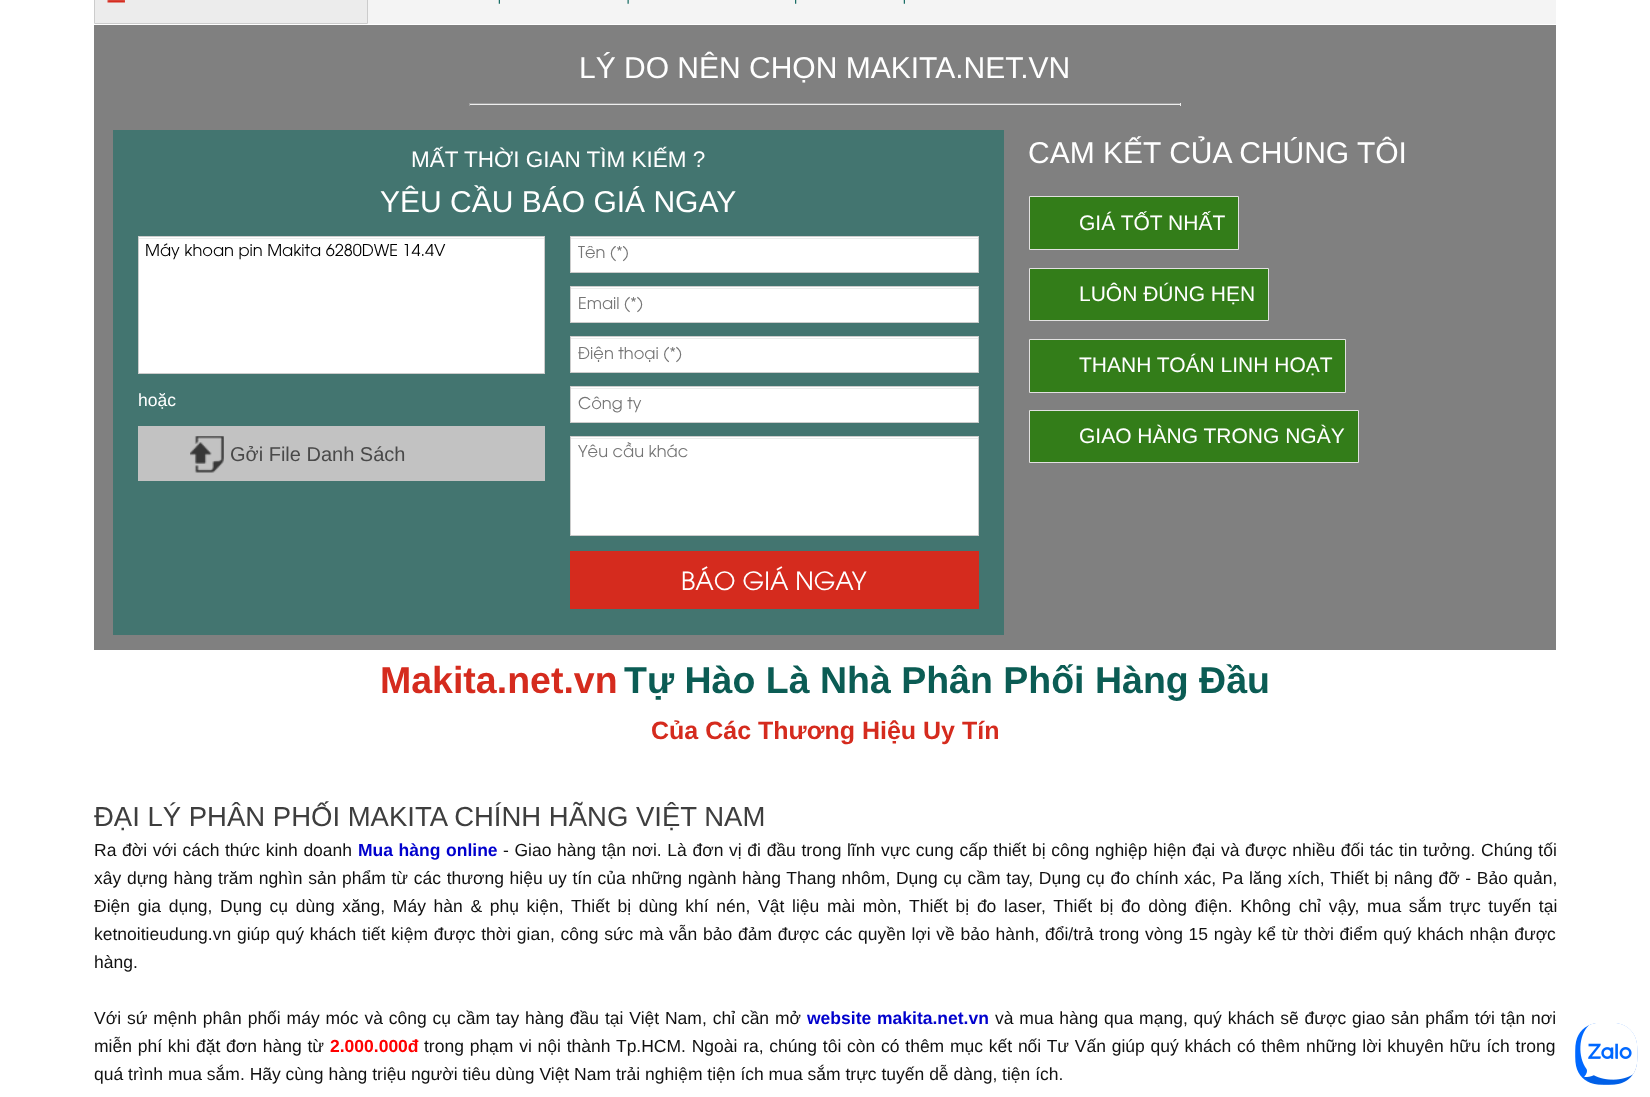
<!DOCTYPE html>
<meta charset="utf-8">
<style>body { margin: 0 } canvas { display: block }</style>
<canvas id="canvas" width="1650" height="1097"></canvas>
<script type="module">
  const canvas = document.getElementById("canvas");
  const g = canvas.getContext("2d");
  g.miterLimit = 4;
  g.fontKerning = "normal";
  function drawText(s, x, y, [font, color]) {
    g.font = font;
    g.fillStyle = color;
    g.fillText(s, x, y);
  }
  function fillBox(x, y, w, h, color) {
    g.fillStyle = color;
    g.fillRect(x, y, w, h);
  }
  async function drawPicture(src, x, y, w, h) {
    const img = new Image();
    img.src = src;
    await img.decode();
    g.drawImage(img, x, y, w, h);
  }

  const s1 = ["30px Liberation Sans", "#FFFFFF"];
  const s2 = ["22.5px Liberation Sans", "#FFFFFF"];
  const s3 = ["16.25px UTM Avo", "#000000"];
  const s4 = ["17.5px Liberation Sans", "#FFFFFF"];
  const s5 = ["20px Liberation Sans", "#494949"];
  const s6 = ["16.25px UTM Avo", "#757575"];
  const s7 = ["25px UTM Avo", "#FFFFFF"];
  const s8 = ["21px Liberation Sans", "#FFFFFF"];
  const s9 = ["bold 37.5px Liberation Sans", "#D52B1E"];
  const s10 = ["bold 37.5px Liberation Sans", "#0B5C54"];
  const s11 = ["bold 25px Liberation Sans", "#D52B1E"];
  const s12 = ["27.5px Liberation Sans", "#3E3E3E"];
  const s13 = ["17.5px Liberation Sans", "#111111"];
  const s14 = ["bold 17.5px Liberation Sans", "#0000CD"];
  const s15 = ["bold 17.5px Liberation Sans", "#FF0000"];

  fillBox(0, 0, 1650, 1097, "#FFFFFF");
  g.fillStyle = "#ECECEC";
  g.beginPath();
  g.rect(94.5, -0.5, 273, 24);
  g.fill();
  g.strokeStyle = "#CCCCCC";
  g.stroke();
  await drawPicture("pic1.png", 107, 0, 18, 3);
  fillBox(368, 0, 1188, 24, "#F4F4F4");
  await drawPicture("pic2.png", 498, 0, 2, 4);
  await drawPicture("pic3.png", 627, 0, 2, 4);
  await drawPicture("pic4.png", 795, 0, 2, 4);
  await drawPicture("pic2.png", 903, 0, 2, 4);
  fillBox(94, 25, 1462, 625, "#808080");
  drawText("LÝ DO NÊN CHỌN MAKITA.NET.VN", 579, 78, s1);
  fillBox(469, 103, 712, 1, "#9F9F9F");
  fillBox(1180, 103, 1, 3, "#EEEEEE");
  fillBox(469, 104, 712, 1, "#EEEEEE");
  fillBox(469, 103, 1, 3, "#9F9F9F");
  fillBox(113, 130, 891, 505, "#437570");
  drawText("MẤT THỜI GIAN TÌM KIẾM ?", 411, 167, s2);
  drawText("YÊU CẦU BÁO GIÁ NGAY", 380, 212, s1);
  fillBox(139, 237, 405, 136, "#FFFFFF");
  fillBox(139, 238, 405, 1, "#ECECEC");
  g.strokeRect(138.5, 236.5, 406, 137);
  drawText("Máy khoan pin Makita 6280DWE 14.4V", 145, 256, s3);
  drawText("hoặc", 138, 406, s4);
  fillBox(138, 426, 407, 55, "#C2C2C2");
  await drawPicture("pic5.png", 190, 436, 34, 37);
  drawText("Gởi File Danh Sách", 230, 461, s5);
  fillBox(571, 237, 407, 35, "#FFFFFF");
  fillBox(571, 238, 407, 1, "#ECECEC");
  g.strokeRect(570.5, 236.5, 408, 36);
  g.save();
  g.beginPath();
  g.rect(571, 246, 407, 17);
  g.clip();
  drawText("Tên (*)", 578, 258, s6);
  g.restore();
  fillBox(571, 287, 407, 35, "#FFFFFF");
  fillBox(571, 288, 407, 1, "#ECECEC");
  g.strokeRect(570.5, 286.5, 408, 36);
  drawText("Email (*)", 578, 309, s6);
  fillBox(571, 337, 407, 35, "#FFFFFF");
  fillBox(571, 338, 407, 1, "#ECECEC");
  g.strokeRect(570.5, 336.5, 408, 36);
  drawText("Điện thoại (*)", 578, 359, s6);
  fillBox(571, 387, 407, 35, "#FFFFFF");
  fillBox(571, 388, 407, 1, "#ECECEC");
  g.strokeRect(570.5, 386.5, 408, 36);
  drawText("Công ty", 578, 409, s6);
  fillBox(571, 437, 407, 98, "#FFFFFF");
  fillBox(571, 438, 407, 1, "#ECECEC");
  g.strokeRect(570.5, 436.5, 408, 99);
  drawText("Yêu cầu khác", 578, 457, s6);
  fillBox(570, 551, 409, 58, "#D52B1E");
  drawText("BÁO GIÁ NGAY", 681, 590, s7);
  drawText("CAM KẾT CỦA CHÚNG TÔI", 1028, 163, s1);
  g.fillStyle = "#337D19";
  g.beginPath();
  g.rect(1029.5, 196.5, 209, 53);
  g.fill();
  g.strokeStyle = "#E2E1E1";
  g.stroke();
  drawText("GIÁ TỐT NHẤT", 1079, 230, s8);
  g.fillStyle = "#337D19";
  g.beginPath();
  g.rect(1029.5, 268.5, 239, 52);
  g.fill();
  g.stroke();
  drawText("LUÔN ĐÚNG HẸN", 1079, 301, s8);
  g.fillStyle = "#337D19";
  g.beginPath();
  g.rect(1029.5, 339.5, 316, 53);
  g.fill();
  g.stroke();
  drawText("THANH TOÁN LINH HOẠT", 1079, 372, s8);
  g.fillStyle = "#337D19";
  g.beginPath();
  g.rect(1029.5, 410.5, 329, 52);
  g.fill();
  g.stroke();
  drawText("GIAO HÀNG TRONG NGÀY", 1079, 443, s8);
  drawText("Makita.net.vn", 380, 693, s9);
  drawText("Tự Hào Là Nhà Phân Phối Hàng Đầu", 624, 693, s10);
  drawText("Của Các Thương Hiệu Uy Tín", 651, 739, s11);
  drawText("ĐẠI LÝ PHÂN PHỐI MAKITA CHÍNH HÃNG VIỆT NAM", 94, 826, s12);
  g.wordSpacing = "0.75px";
  drawText("Ra đời với cách thức kinh doanh", 94, 856, s13);
  drawText("Mua hàng online", 358, 856, s14);
  g.wordSpacing = "0.8px";
  drawText("- Giao hàng tận nơi. Là đơn vị đi đầu trong lĩnh vực cung cấp thiết bị công nghiệp hiện đại và được nhiều đối tác tin tưởng. Chúng tối", 503, 856, s13);
  drawText("xây dựng hàng trăm nghìn sản phẩm từ các thương hiệu uy tín của những ngành hàng Thang nhôm, Dụng cụ cầm tay, Dụng cụ đo chính xác, Pa lăng xích, Thiết bị nâng đỡ - Bảo quản,", 94, 884, s13);
  g.wordSpacing = "2.8px";
  drawText("Điện gia dụng, Dụng cụ dùng xăng, Máy hàn & phụ kiện, Thiết bị dùng khí nén, Vật liệu mài mòn, Thiết bị đo laser, Thiết bị đo dòng điện. Không chỉ vậy, mua sắm trực tuyến tại", 94, 912, s13);
  g.wordSpacing = "0.85px";
  drawText("ketnoitieudung.vn giúp quý khách tiết kiệm được thời gian, công sức mà vẫn bảo đảm được các quyền lợi về bảo hành, đổi/trả trong vòng 15 ngày kể từ thời điểm quý khách nhận được", 94, 940, s13);
  g.wordSpacing = "0px";
  drawText("hàng.", 94, 968, s13);
  g.wordSpacing = "1px";
  drawText("Với sứ mệnh phân phối máy móc và công cụ cầm tay hàng đầu tại Việt Nam, chỉ cần mở", 94, 1024, s13);
  drawText("website makita.net.vn", 807, 1024, s14);
  drawText("và mua hàng qua mạng, quý khách sẽ được giao sản phẩm tới tận nơi", 995, 1024, s13);
  g.wordSpacing = "0.9px";
  drawText("miễn phí khi đặt đơn hàng từ", 94, 1052, s13);
  g.wordSpacing = "0px";
  drawText("2.000.000đ", 330, 1052, s15);
  g.wordSpacing = "0.9px";
  drawText("trong phạm vi nội thành Tp.HCM. Ngoài ra, chúng tôi còn có thêm mục kết nối Tư Vấn giúp quý khách có thêm những lời khuyên hữu ích trong", 424, 1052, s13);
  g.wordSpacing = "0px";
  drawText("quá trình mua sắm. Hãy cùng hàng triệu người tiêu dùng Việt Nam trải nghiệm tiện ích mua sắm trực tuyến dễ dàng, tiện ích.", 94, 1080, s13);
  await drawPicture("pic6.png", 1575, 1023, 63, 62);
</script>
